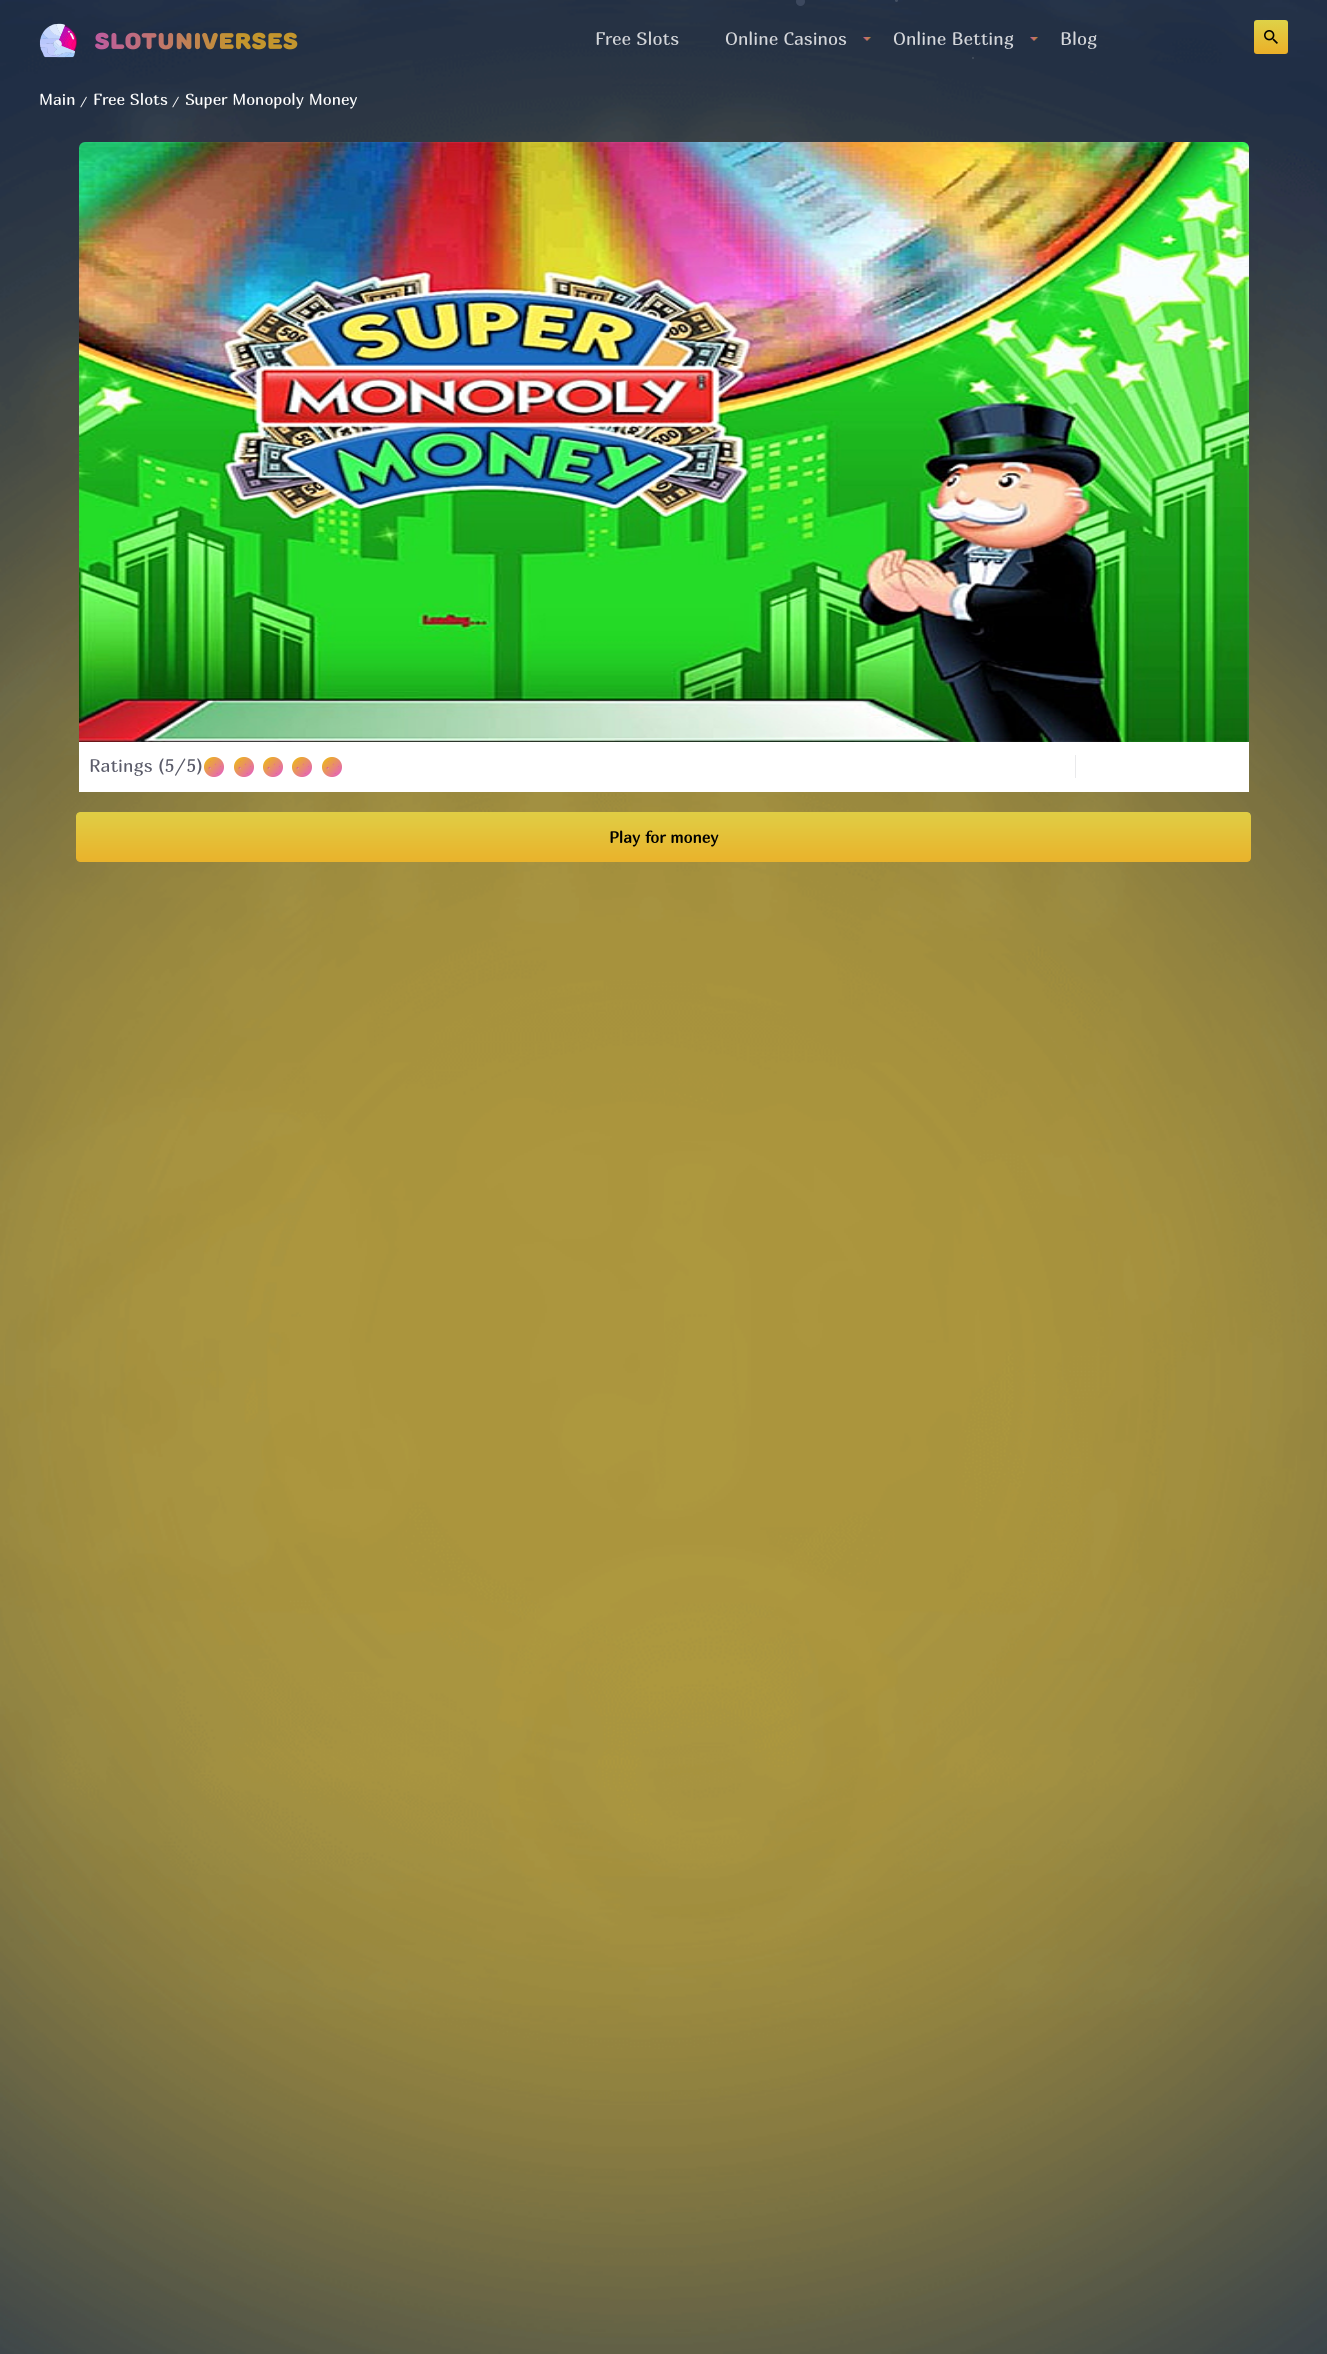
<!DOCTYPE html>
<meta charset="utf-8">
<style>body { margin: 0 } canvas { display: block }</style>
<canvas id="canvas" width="1327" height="2354"></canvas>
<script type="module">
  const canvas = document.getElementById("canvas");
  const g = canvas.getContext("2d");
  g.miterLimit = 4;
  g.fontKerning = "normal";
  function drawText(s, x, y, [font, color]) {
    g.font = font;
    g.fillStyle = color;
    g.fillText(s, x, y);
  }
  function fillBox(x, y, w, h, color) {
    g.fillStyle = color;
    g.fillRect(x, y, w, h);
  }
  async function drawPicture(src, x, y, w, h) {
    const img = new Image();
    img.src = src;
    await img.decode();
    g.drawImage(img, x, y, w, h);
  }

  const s1 = ["18px Marmelad", "#D4D6DA"];
  const s2 = ["16px Marmelad", "#FFFFFF"];
  const s3 = ["11px Marmelad", "#FFFFFF"];
  const s4 = ["18px Marmelad", "#5B5C6A"];
  const s5 = ["bold 16px Marmelad", "#000000"];

  fillBox(0, 0, 1327, 2354, "#FFFFFF");
  await drawPicture("pic5.png", 0, 0, 1327, 2354);
  await drawPicture("pic1.png", 39, 23, 259, 35);
  drawText("Free Slots", 595, 45, s1);
  await drawPicture("pic6.png", 796, 0, 178, 59);
  drawText("Online Casinos", 725, 45, s1);
  await drawPicture("pic2.png", 863, 37, 8, 4);
  drawText("Online Betting", 893, 45, s1);
  await drawPicture("pic3.png", 1030, 37, 8, 4);
  drawText("Blog", 1060, 45, s1);
  await drawPicture("pic4.png", 1254, 20, 34, 34);
  drawText("Main", 39, 105, s2);
  drawText("/", 80, 105, s3);
  drawText("Free Slots", 93, 105, s2);
  drawText("/", 172, 105, s3);
  drawText("Super Monopoly Money", 185, 105, s2);
  await drawPicture("pic7.png", 79, 142, 1170, 600);
  fillBox(79, 742, 1170, 50, "#FFFFFF");
  drawText("Ratings (5/5)", 89, 772, s4);
  await drawPicture("pic8.png", 204, 757, 20, 20);
  await drawPicture("pic8.png", 234, 757, 20, 20);
  await drawPicture("pic8.png", 263, 757, 20, 20);
  await drawPicture("pic8.png", 292, 757, 20, 20);
  await drawPicture("pic8.png", 322, 757, 20, 20);
  fillBox(1075, 755, 1, 23, "#EAEAEC");
  await drawPicture("pic9.png", 76, 812, 1175, 50);
  drawText("Play for money", 609, 843, s5);
</script>
